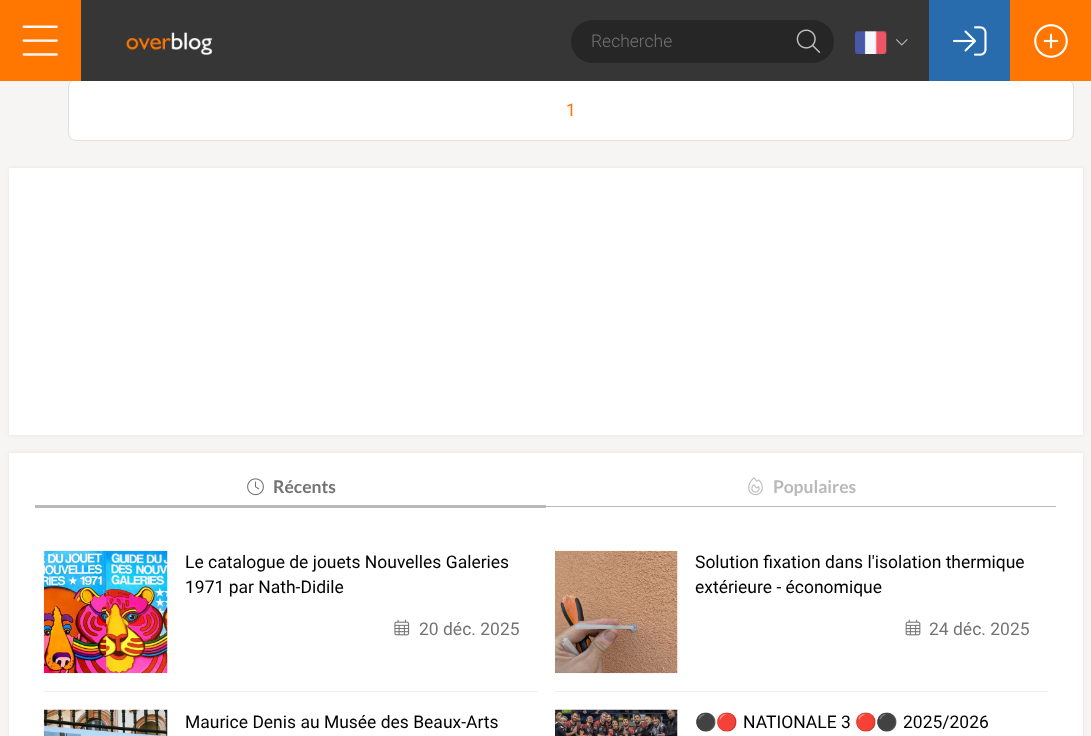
<!DOCTYPE html>
<meta charset="utf-8">
<style>body { margin: 0 } canvas { display: block }</style>
<canvas id="canvas" width="1091" height="736"></canvas>
<script type="module">
  const canvas = document.getElementById("canvas");
  const g = canvas.getContext("2d");
  g.miterLimit = 4;
  g.fontKerning = "normal";
  function drawText(s, x, y, [font, color]) {
    g.font = font;
    g.fillStyle = color;
    g.fillText(s, x, y);
  }
  function fillBox(x, y, w, h, color) {
    g.fillStyle = color;
    g.fillRect(x, y, w, h);
  }
  function fillRounded(x, y, w, h, r, color) {
    g.fillStyle = color;
    g.beginPath();
    g.roundRect(x, y, w, h, r);
    g.fill();
  }
  async function drawPicture(src, x, y, w, h) {
    const img = new Image();
    img.src = src;
    await img.decode();
    g.drawImage(img, x, y, w, h);
  }

  const s1 = ["300 17.5px Roboto", "#737373"];
  const s2 = ["17.5px Roboto", "#FF7600"];
  const s3 = ["bold 17.5px Lato", "#737373"];
  const s4 = ["bold 17.5px Lato", "#B9B9B9"];
  const s5 = ["17.5px Roboto", "#000000"];
  const s6 = ["17.5px Roboto", "#737373"];
  const s7 = ["17.5px Noto Color Emoji", "#000000"];

  fillBox(0, 0, 1091, 736, "#F7F5F3");
  g.fillStyle = "#FFFFFF";
  g.beginPath();
  g.roundRect(68.5, 79.5, 1005, 61, 7.5);
  g.fill();
  g.strokeStyle = "#E1E1E1";
  g.stroke();
  fillBox(81, 0, 848, 81, "#363636");
  fillBox(0, 0, 81, 81, "#FF7600");
  await drawPicture("pic1.png", 22, 25, 36, 31);
  await drawPicture("pic2.png", 126, 32, 87, 23);
  fillRounded(571, 20, 263, 43, 21.5, "#262626");
  drawText("Recherche", 591, 47, s1);
  await drawPicture("pic3.png", 796, 29, 25, 24);
  await drawPicture("pic4.png", 855, 31, 32, 23);
  await drawPicture("pic5.png", 896, 39, 12, 7);
  fillBox(929, 0, 81, 81, "#286CAE");
  await drawPicture("pic6.png", 953, 26, 34, 30);
  fillBox(1010, 0, 81, 81, "#FF7600");
  await drawPicture("pic7.png", 1034, 24, 34, 34);
  drawText("1", 566, 116, s2);
  g.fillStyle = "rgba(0, 0, 0, 0.07)";
  g.filter = "blur(2px)";
  g.beginPath();
  g.rect(9, 168, 1074, 267);
  g.fill();
  g.filter = "none";
  fillBox(9, 168, 1074, 267, "#FFFFFF");
  g.fillStyle = "rgba(0, 0, 0, 0.07)";
  g.filter = "blur(2px)";
  g.beginPath();
  g.rect(9, 453, 1074, 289);
  g.fill();
  g.filter = "none";
  fillBox(9, 453, 1074, 283, "#FFFFFF");
  fillBox(35, 505, 511, 3, "#B9B9B9");
  await drawPicture("pic8.png", 247, 478, 17, 18);
  drawText("Récents", 273, 493, s3);
  fillBox(546, 506, 510, 1, "#B9B9B9");
  await drawPicture("pic9.png", 748, 477, 15, 19);
  drawText("Populaires", 773, 493, s4);
  fillBox(44, 691, 494, 1, "#F0F0F0");
  await drawPicture("pic10.png", 43, 550, 125, 124);
  drawText("Le catalogue de jouets Nouvelles Galeries", 185, 568, s5);
  drawText("1971 par Nath-Didile", 185, 593, s5);
  await drawPicture("pic11.png", 394, 619, 16, 17);
  drawText("20 déc. 2025", 419, 635, s6);
  fillBox(555, 691, 493, 1, "#F0F0F0");
  await drawPicture("pic12.png", 555, 550, 123, 124);
  drawText("Solution fixation dans l'isolation thermique", 695, 568, s5);
  drawText("extérieure - économique", 695, 593, s5);
  await drawPicture("pic13.png", 905, 619, 16, 17);
  drawText("24 déc. 2025", 929, 635, s6);
  await drawPicture("pic14.png", 43, 709, 125, 27);
  drawText("Maurice Denis au Musée des Beaux-Arts", 185, 728, s5);
  await drawPicture("pic15.png", 555, 709, 123, 27);
  drawText("⚫️🔴", 695, 728, s7);
  drawText("NATIONALE 3", 743, 728, s5);
  drawText("🔴⚫️", 855, 728, s7);
  drawText("2025/2026", 903, 728, s5);
</script>
